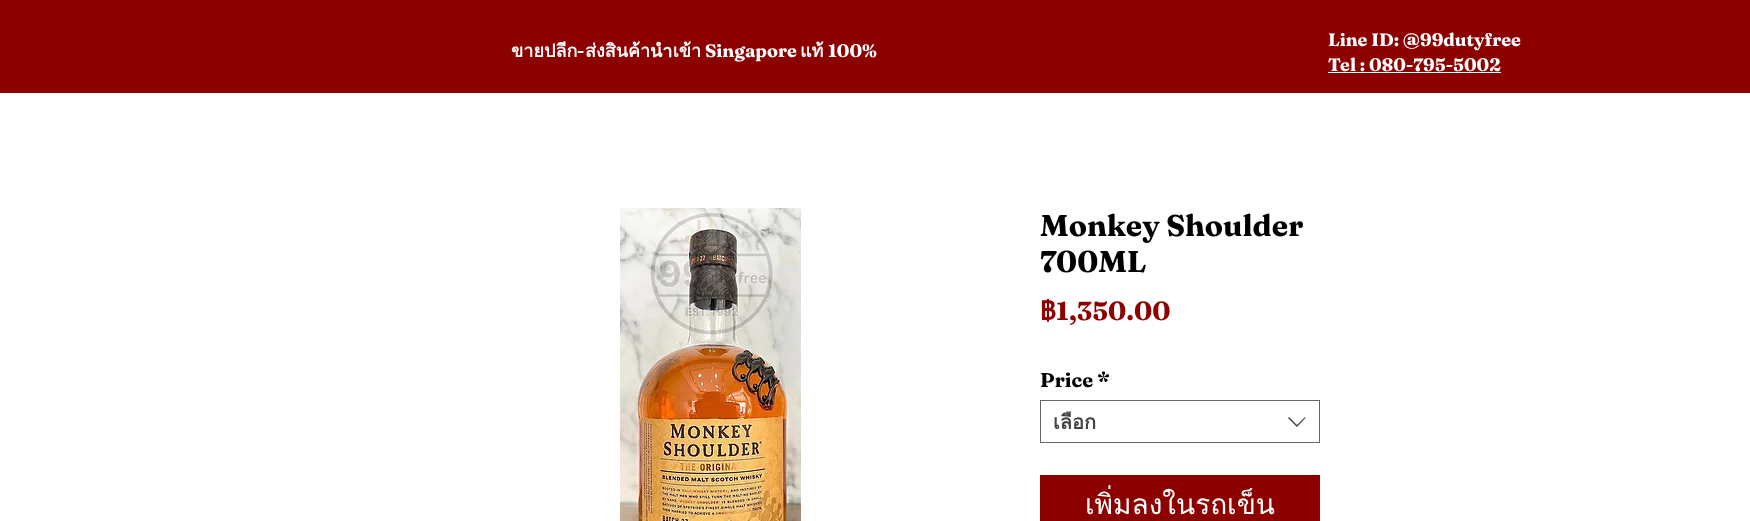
<!DOCTYPE html>
<meta charset="utf-8">
<style>body { margin: 0 } canvas { display: block }</style>
<canvas id="canvas" width="1750" height="521"></canvas>
<script type="module">
  const canvas = document.getElementById("canvas");
  const g = canvas.getContext("2d");
  g.miterLimit = 4;
  g.fontKerning = "normal";
  function drawText(s, x, y, [font, color]) {
    g.font = font;
    g.fillStyle = color;
    g.fillText(s, x, y);
  }
  function fillBox(x, y, w, h, color) {
    g.fillStyle = color;
    g.fillRect(x, y, w, h);
  }
  async function drawPicture(src, x, y, w, h) {
    const img = new Image();
    img.src = src;
    await img.decode();
    g.drawImage(img, x, y, w, h);
  }

  const s1 = ["bold 18px Loma", "#FFFFFF"];
  const s2 = ["bold 18px Fraunces", "#FFFFFF"];
  const s3 = ["bold 30px Fraunces", "#000000"];
  const s4 = ["bold 26px Loma", "#8C0000"];
  const s5 = ["bold 26px Fraunces", "#8C0000"];
  const s6 = ["bold 20px Fraunces", "#000000"];
  const s7 = ["bold 20px Loma", "#444444"];
  const s8 = ["28px Loma", "#FFFFFF"];

  fillBox(0, 0, 1750, 521, "#FFFFFF");
  fillBox(0, 0, 1750, 93, "#8C0000");
  drawText("ขายปลีก", 511, 57, s1);
  drawText("-", 577, 57, s2);
  drawText("ส่งสินค้านำเข้า", 585, 57, s1);
  drawText("Singapore", 705, 57, s2);
  drawText("แท้", 800, 57, s1);
  drawText("100%", 828, 57, s2);
  drawText("Line ID: @99dutyfree", 1328, 46, s2);
  drawText("Tel : 080-795-5002", 1328, 71, s2);
  fillBox(1328, 72, 173, 1, "#FFFFFF");
  await drawPicture("pic1.png", 620, 208, 181, 313);
  drawText("Monkey Shoulder", 1040, 236, s3);
  drawText("700ML", 1040, 272, s3);
  drawText("฿", 1040, 320, s4);
  drawText("1,350.00", 1056, 320, s5);
  drawText("Price *", 1040, 387, s6);
  g.strokeStyle = "#666666";
  g.strokeRect(1040.5, 400.5, 279, 42);
  g.save();
  g.beginPath();
  g.rect(1053, 409, 225, 25);
  g.clip();
  drawText("เลือก", 1053, 429, s7);
  g.restore();
  g.fillStyle = "#444444";
  g.beginPath();
  g.moveTo(1305, 417);
  g.lineTo(1305.5, 418);
  g.lineTo(1297, 427);
  g.lineTo(1288, 418);
  g.lineTo(1289, 417);
  g.lineTo(1297, 425);
  g.closePath();
  g.fill("evenodd");
  fillBox(1040, 475, 280, 46, "#8C0000");
  drawText("เพิ่มลงในรถเข็น", 1085, 514, s8);
</script>
